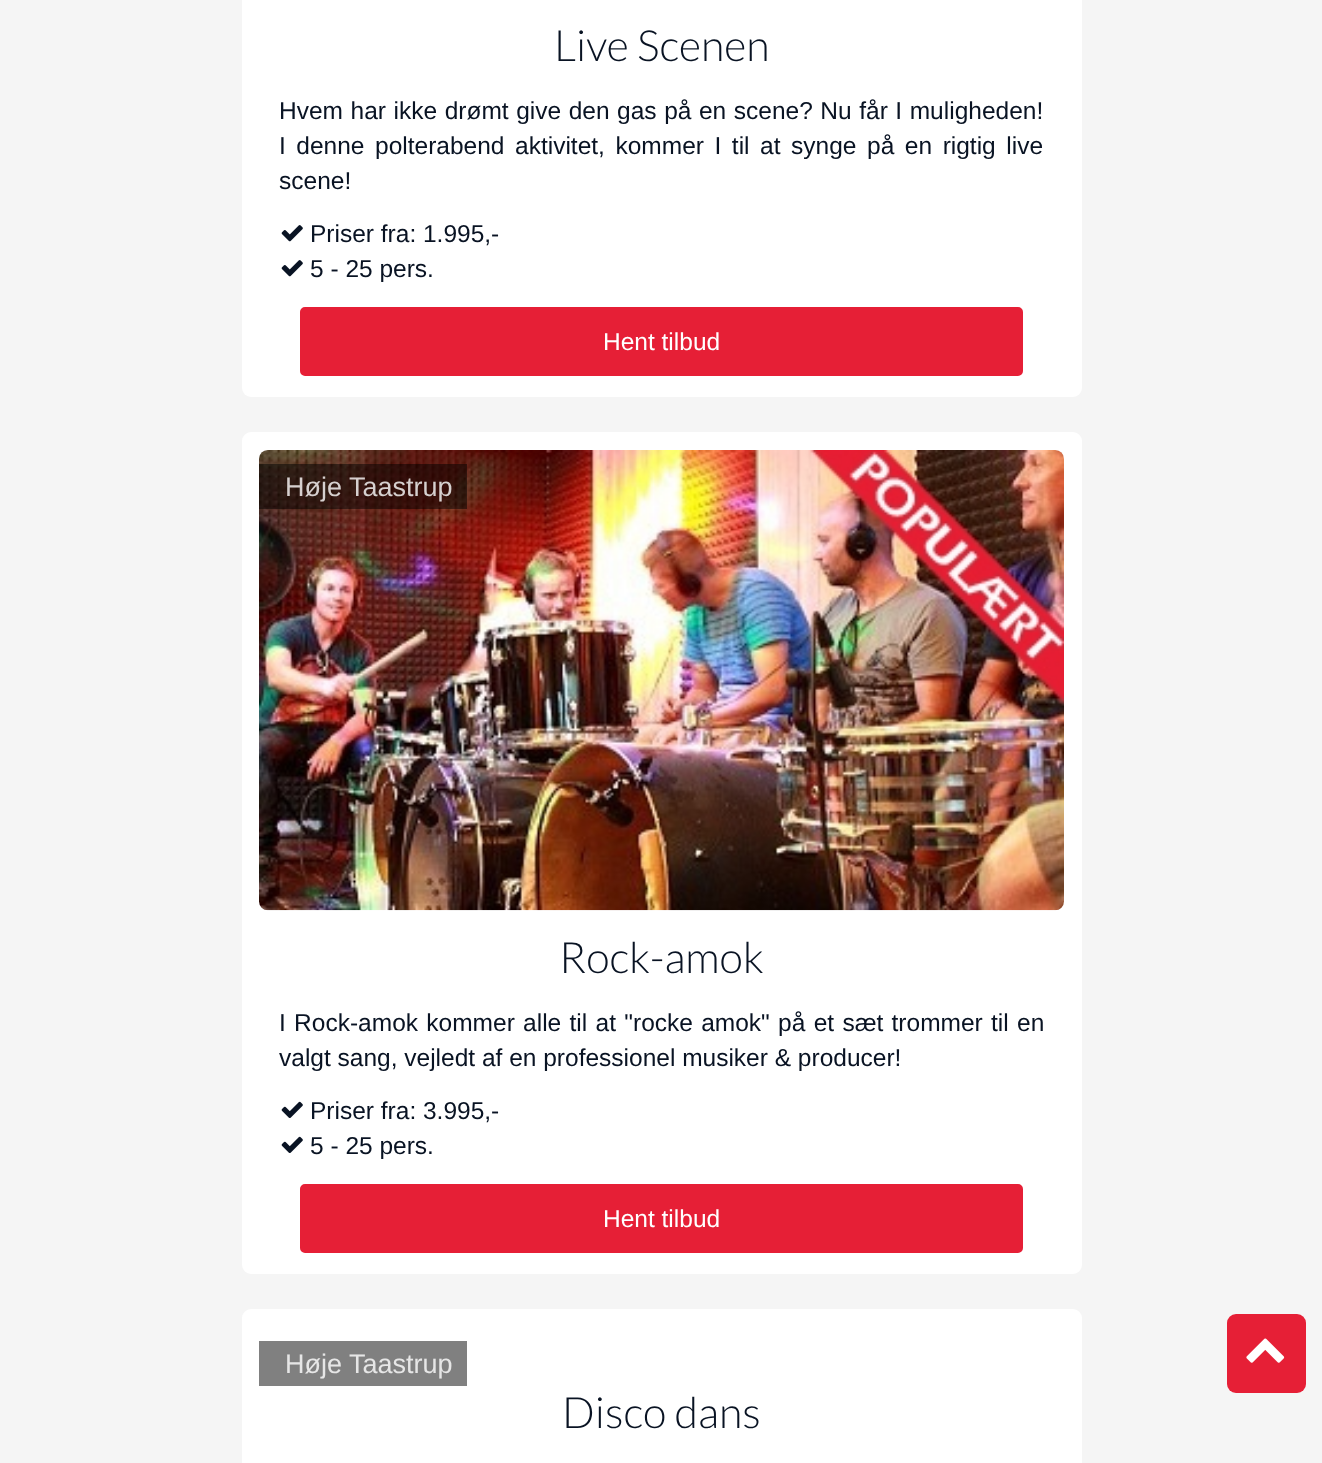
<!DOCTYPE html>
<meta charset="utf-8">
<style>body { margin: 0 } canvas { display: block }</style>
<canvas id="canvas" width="1322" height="1463"></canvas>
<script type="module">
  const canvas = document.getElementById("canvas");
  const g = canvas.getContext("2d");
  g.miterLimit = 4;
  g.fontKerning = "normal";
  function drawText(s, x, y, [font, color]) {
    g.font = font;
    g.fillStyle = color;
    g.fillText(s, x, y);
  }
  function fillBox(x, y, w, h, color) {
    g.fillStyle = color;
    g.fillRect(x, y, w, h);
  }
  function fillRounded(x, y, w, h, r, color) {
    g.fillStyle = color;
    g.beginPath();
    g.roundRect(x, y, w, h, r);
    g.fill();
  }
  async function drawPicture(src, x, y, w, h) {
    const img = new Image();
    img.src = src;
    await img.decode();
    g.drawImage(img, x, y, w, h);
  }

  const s1 = ["300 43px Lato", "#091323"];
  const s2 = ["24.5px Liberation Sans", "#091323"];
  const s3 = ["24.5px Liberation Sans", "#FFFFFF"];
  const s4 = ["27px Liberation Sans", "#D6D0CF"];
  const s5 = ["27px Liberation Sans", "#E6E6E6"];

  fillBox(0, 0, 1322, 1463, "#F5F5F5");
  fillRounded(242, -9, 840, 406, 9, "#FFFFFF");
  drawText("Live Scenen", 554, 61, s1);
  g.wordSpacing = "0.75px";
  drawText("Hvem har ikke drømt give den gas på en scene? Nu får I muligheden!", 279, 119, s2);
  g.wordSpacing = "3.75px";
  drawText("I denne polterabend aktivitet, kommer I til at synge på en rigtig live", 279, 154, s2);
  g.wordSpacing = "0px";
  drawText("scene!", 279, 189, s2);
  await drawPicture("pic1.png", 281, 225, 22, 17);
  drawText("Priser fra: 1.995,-", 310, 242, s2);
  await drawPicture("pic1.png", 281, 260, 22, 17);
  drawText("5 - 25 pers.", 310, 277, s2);
  g.fillStyle = "#E61F36";
  g.beginPath();
  g.roundRect(298, 305, 727, 73, 7);
  g.fill();
  g.strokeStyle = "#FFFFFF";
  g.lineWidth = 4;
  g.stroke();
  drawText("Hent tilbud", 603, 350, s3);
  fillRounded(242, 432, 840, 842, 9, "#FFFFFF");
  await drawPicture("pic2.png", 259, 450, 805, 461);
  fillBox(259, 464, 208, 45, "rgba(0, 0, 0, 0.5)");
  drawText("Høje Taastrup", 285, 496, s4);
  drawText("Rock-amok", 559, 973, s1);
  g.wordSpacing = "1.5px";
  drawText("I Rock-amok kommer alle til at \"rocke amok\" på et sæt trommer til en", 279, 1031, s2);
  g.wordSpacing = "0px";
  drawText("valgt sang, vejledt af en professionel musiker & producer!", 279, 1066, s2);
  await drawPicture("pic3.png", 281, 1101, 22, 17);
  drawText("Priser fra: 3.995,-", 310, 1119, s2);
  await drawPicture("pic3.png", 281, 1136, 22, 17);
  drawText("5 - 25 pers.", 310, 1154, s2);
  g.fillStyle = "#E61F36";
  g.beginPath();
  g.roundRect(298, 1182, 727, 73, 7);
  g.fill();
  g.stroke();
  drawText("Hent tilbud", 603, 1227, s3);
  fillRounded(242, 1309, 840, 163, 9, "#FFFFFF");
  fillBox(259, 1341, 208, 45, "#808080");
  drawText("Høje Taastrup", 285, 1373, s5);
  drawText("Disco dans", 562, 1428, s1);
  fillRounded(1227, 1314, 79, 79, 9, "#E61F36");
  await drawPicture("pic4.png", 1246, 1338, 39, 25);
</script>
